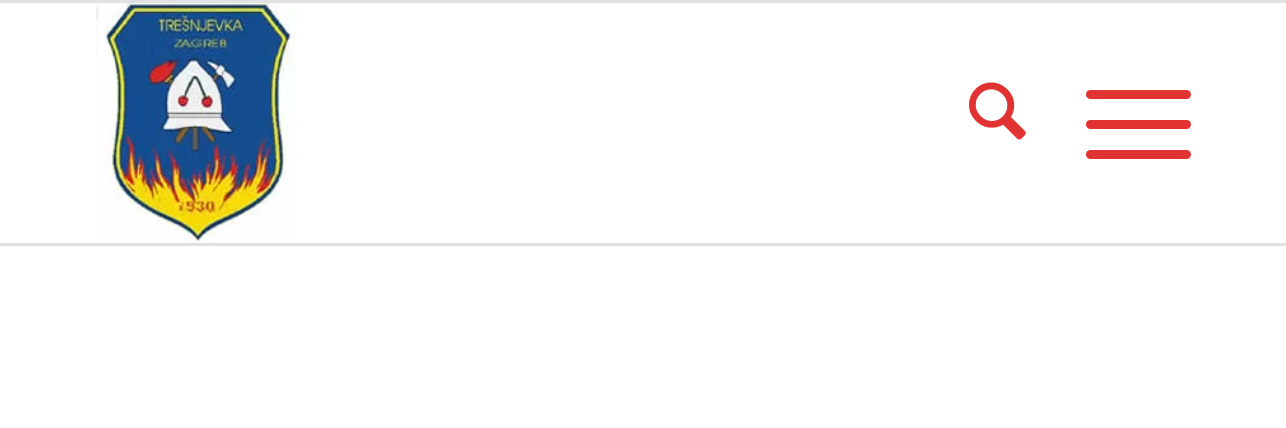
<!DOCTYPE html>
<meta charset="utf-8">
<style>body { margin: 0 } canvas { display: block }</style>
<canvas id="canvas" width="1286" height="428"></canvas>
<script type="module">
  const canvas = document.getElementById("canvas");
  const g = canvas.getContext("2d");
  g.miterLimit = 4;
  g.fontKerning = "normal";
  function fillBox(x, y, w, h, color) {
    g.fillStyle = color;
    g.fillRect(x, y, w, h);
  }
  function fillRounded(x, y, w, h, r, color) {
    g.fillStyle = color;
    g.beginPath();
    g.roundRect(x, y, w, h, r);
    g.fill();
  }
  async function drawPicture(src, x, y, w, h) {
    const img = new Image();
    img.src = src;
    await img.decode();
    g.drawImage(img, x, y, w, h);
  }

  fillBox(0, 0, 1286, 428, "#FFFFFF");
  fillBox(0, 0, 1286, 3, "#E1E1E1");
  fillBox(0, 243, 1286, 3, "#E1E1E1");
  await drawPicture("pic1.png", 96, 3, 199, 240);
  await drawPicture("pic2.png", 969, 82, 57, 58);
  fillRounded(1086, 120, 105, 9, 4.5, "#E23333");
  fillRounded(1086, 90, 105, 9, 4.5, "#E23333");
  fillRounded(1086, 150, 105, 9, 4.5, "#E23333");
</script>
